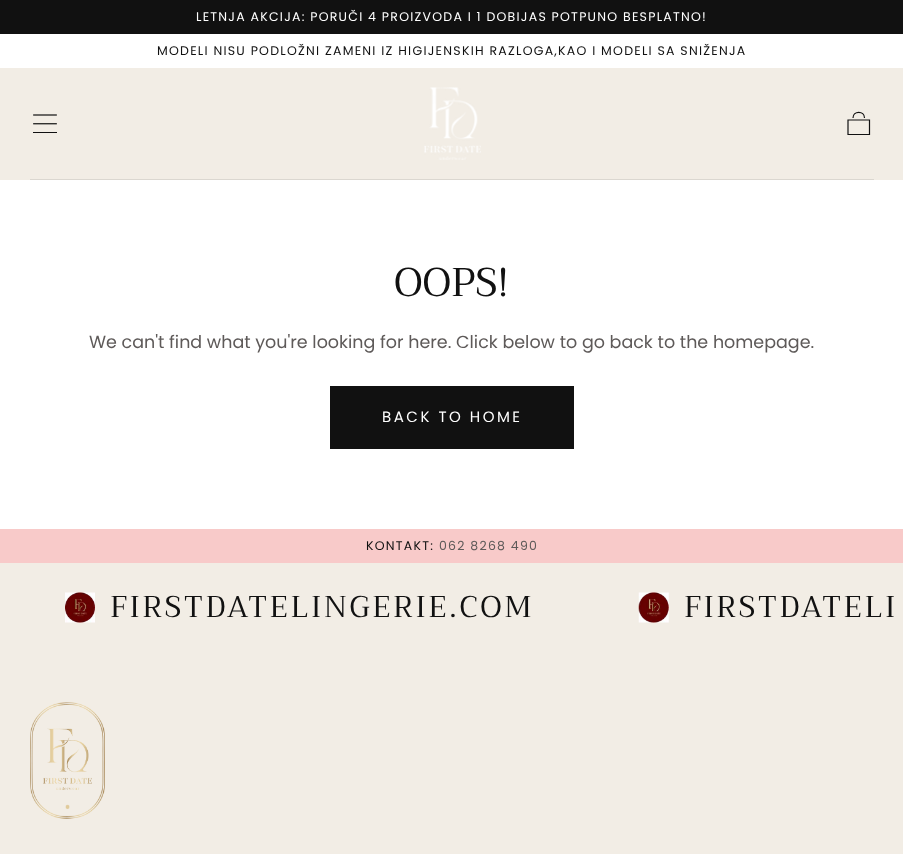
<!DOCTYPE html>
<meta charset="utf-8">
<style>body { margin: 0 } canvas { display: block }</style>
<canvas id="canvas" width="903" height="854"></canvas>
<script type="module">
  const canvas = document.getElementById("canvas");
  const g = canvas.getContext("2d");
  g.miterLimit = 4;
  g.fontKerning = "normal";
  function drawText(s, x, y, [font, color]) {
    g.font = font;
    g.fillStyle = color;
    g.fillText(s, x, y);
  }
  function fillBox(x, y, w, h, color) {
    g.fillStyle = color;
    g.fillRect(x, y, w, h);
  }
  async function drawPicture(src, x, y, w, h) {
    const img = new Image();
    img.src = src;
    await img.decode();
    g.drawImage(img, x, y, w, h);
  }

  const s1 = ["12.5px Poppins", "#FFFFFF"];
  const s2 = ["12.5px Poppins", "#111111"];
  const s3 = ["40px Trirong", "#111111"];
  const s4 = ["17.5px Poppins", "#5E5A59"];
  const s5 = ["15px Poppins", "#FFFFFF"];
  const s6 = ["12.5px Poppins", "#5E5A59"];
  const s7 = ["30px Trirong", "#111111"];

  fillBox(0, 0, 903, 854, "#FFFFFF");
  fillBox(0, 0, 903, 34, "#111111");
  g.letterSpacing = "1.25px";
  drawText("LETNJA AKCIJA: PORUČI 4 PROIZVODA I 1 DOBIJAS POTPUNO BESPLATNO!", 196, 21, s1);
  drawText("MODELI NISU PODLOŽNI ZAMENI IZ HIGIJENSKIH RAZLOGA,KAO I MODELI SA SNIŽENJA", 157, 55, s2);
  fillBox(0, 68, 903, 112, "#F2EDE5");
  await drawPicture("pic1.png", 33, 114, 24, 19);
  await drawPicture("pic2.png", 424, 87, 57, 73);
  g.beginPath();
  g.moveTo(869.5, 134.5);
  g.lineTo(848, 134.5);
  g.lineTo(848, 120);
  g.lineTo(869.5, 120);
  g.closePath();
  g.moveTo(864.5, 118);
  g.bezierCurveTo(864.5, 110.5, 853, 110.5, 853, 118);
  g.strokeStyle = "#111111";
  g.lineWidth = 1.2;
  g.stroke();
  fillBox(30, 179, 844, 1, "#DBD7D0");
  g.letterSpacing = "0px";
  drawText("OOPS!", 394, 296, s3);
  drawText("We can't find what you're looking for here. Click below to go back to the homepage.", 89, 348, s4);
  fillBox(330, 386, 244, 63, "#111111");
  g.letterSpacing = "2.5px";
  drawText("BACK TO HOME", 382, 422, s5);
  fillBox(0, 529, 903, 34, "#F8CAC9");
  g.letterSpacing = "1.25px";
  drawText("KONTAKT:", 366, 550, s2);
  drawText("062 8268 490", 439, 550, s6);
  fillBox(0, 563, 903, 291, "#F2EDE5");
  await drawPicture("pic3.png", 65, 592, 30, 31);
  g.letterSpacing = "2.5px";
  drawText("FIRSTDATELINGERIE.COM", 110, 617, s7);
  await drawPicture("pic4.png", 638, 592, 31, 31);
  drawText("FIRSTDATELI", 684, 617, s7);
  await drawPicture("pic5.png", 30, 702, 75, 117);
</script>
